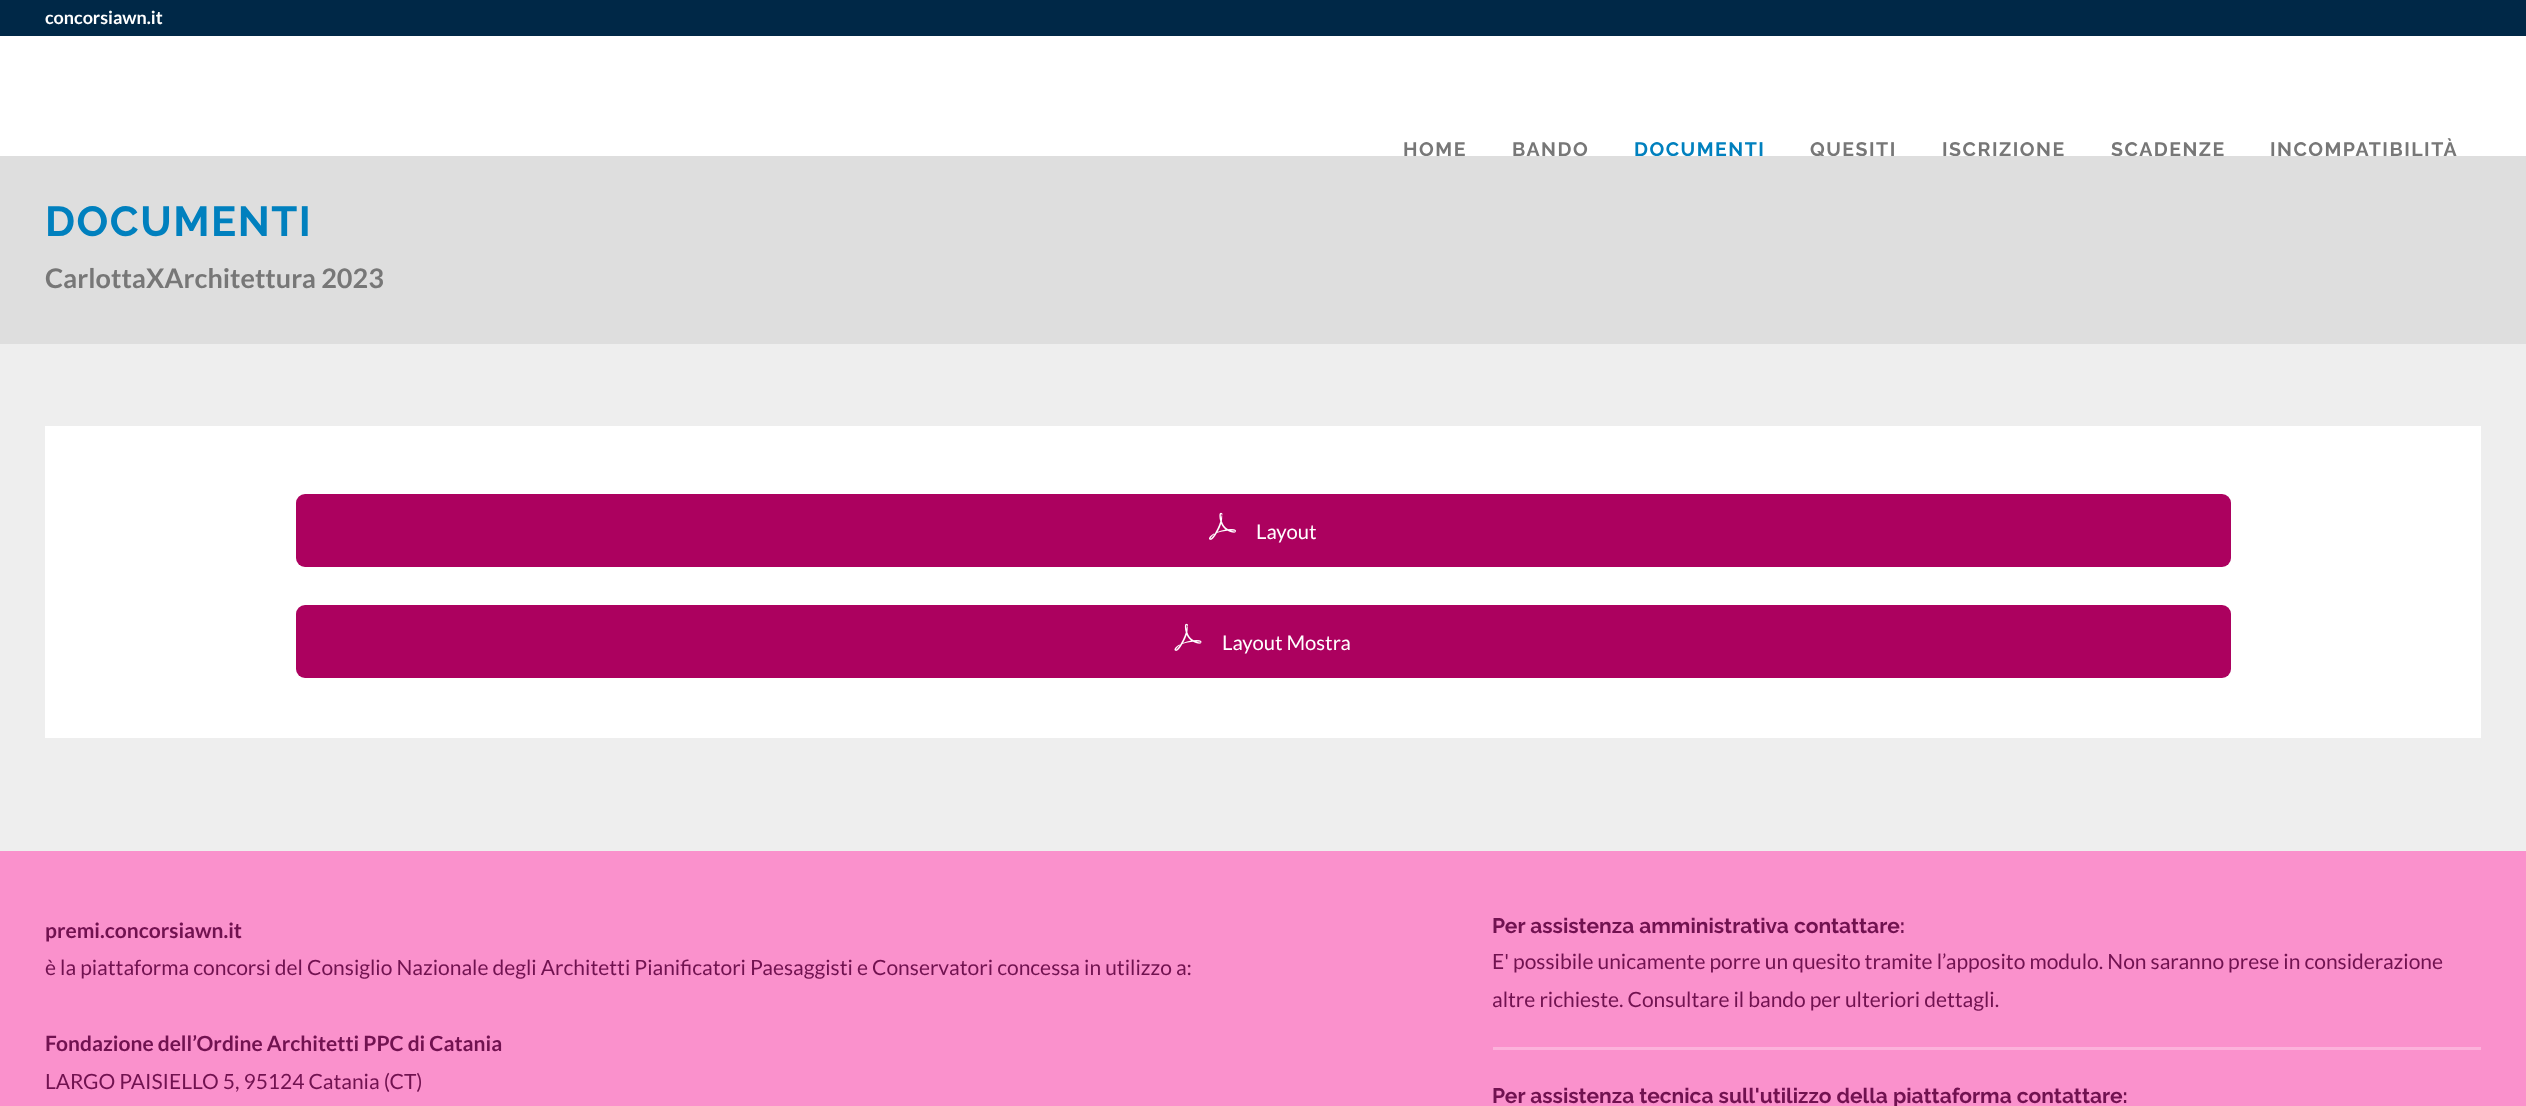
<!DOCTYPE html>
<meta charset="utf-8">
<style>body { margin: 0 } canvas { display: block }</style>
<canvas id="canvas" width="2526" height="1106"></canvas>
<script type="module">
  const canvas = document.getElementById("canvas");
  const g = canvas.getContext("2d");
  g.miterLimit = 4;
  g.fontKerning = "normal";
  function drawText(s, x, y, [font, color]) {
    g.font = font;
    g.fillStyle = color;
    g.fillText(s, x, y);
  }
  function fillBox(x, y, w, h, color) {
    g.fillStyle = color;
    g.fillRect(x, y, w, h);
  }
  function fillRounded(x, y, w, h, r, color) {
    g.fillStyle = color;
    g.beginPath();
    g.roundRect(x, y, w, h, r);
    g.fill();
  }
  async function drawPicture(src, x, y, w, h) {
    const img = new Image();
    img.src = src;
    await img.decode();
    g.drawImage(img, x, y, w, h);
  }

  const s1 = ["bold 18px Lato", "#FFFFFF"];
  const s2 = ["bold 19.5px Raleway", "#777777"];
  const s3 = ["bold 19.5px Raleway", "#0080BE"];
  const s4 = ["bold 42px Raleway", "#0080BE"];
  const s5 = ["bold 27px Lato", "#777777"];
  const s6 = ["20.25px Lato", "#FFFFFF"];
  const s7 = ["bold 21px Lato", "#711250"];
  const s8 = ["21px Lato", "#711250"];
  const s9 = ["bold 21px Raleway", "#711250"];

  fillBox(0, 0, 2526, 1106, "#002847");
  drawText("concorsiawn.it", 45, 24, s1);
  fillBox(0, 36, 2526, 120, "#FFFFFF");
  g.letterSpacing = "1.5px";
  drawText("HOME", 1403, 156, s2);
  drawText("BANDO", 1512, 156, s2);
  g.save();
  g.beginPath();
  g.rect(0, 36, 2526, 120);
  g.clip();
  drawText("DOCUMENTI", 1634, 156, s3);
  drawText("QUESITI", 1810, 156, s2);
  drawText("ISCRIZIONE", 1942, 156, s2);
  drawText("SCADENZE", 2111, 156, s2);
  g.restore();
  drawText("INCOMPATIBILITÀ", 2270, 156, s2);
  fillBox(0, 156, 2526, 188, "#DEDEDE");
  fillBox(0, 344, 2526, 507, "#EEEEEE");
  drawText("DOCUMENTI", 45, 236, s4);
  g.letterSpacing = "0px";
  drawText("CarlottaXArchitettura 2023", 45, 288, s5);
  fillBox(45, 426, 2436, 312, "#FFFFFF");
  fillRounded(296, 494, 1935, 73, 9, "#AC015F");
  await drawPicture("pic1.png", 1209, 512, 27, 28);
  drawText("Layout", 1256, 539, s6);
  fillRounded(296, 605, 1935, 73, 9, "#AC015F");
  await drawPicture("pic2.png", 1174, 623, 28, 28);
  drawText("Layout Mostra", 1222, 650, s6);
  fillBox(0, 851, 2526, 255, "#FA91CC");
  drawText("premi.concorsiawn.it", 45, 938, s7);
  drawText("è la piattaforma concorsi del Consiglio Nazionale degli Architetti Pianificatori Paesaggisti e Conservatori concessa in utilizzo a:", 45, 975, s8);
  drawText("Fondazione dell’Ordine Architetti PPC di Catania", 45, 1051, s7);
  drawText("LARGO PAISIELLO 5, 95124 Catania (CT)", 45, 1089, s8);
  drawText("Per assistenza amministrativa contattare:", 1492, 933, s9);
  drawText("E' possibile unicamente porre un quesito tramite l’apposito modulo. Non saranno prese in considerazione", 1492, 969, s8);
  drawText("altre richieste. Consultare il bando per ulteriori dettagli.", 1492, 1007, s8);
  fillBox(1493, 1047, 988, 3, "#FCB2DB");
  drawText("Per assistenza tecnica sull'utilizzo della piattaforma contattare:", 1492, 1103, s9);
</script>
